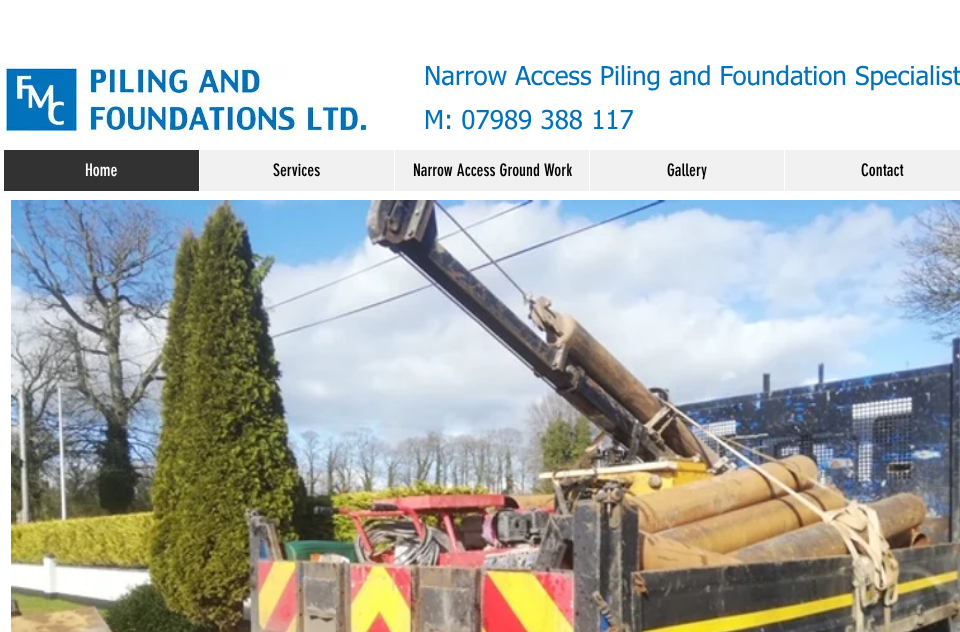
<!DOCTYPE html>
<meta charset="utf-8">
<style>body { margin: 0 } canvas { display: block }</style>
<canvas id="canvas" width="960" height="632"></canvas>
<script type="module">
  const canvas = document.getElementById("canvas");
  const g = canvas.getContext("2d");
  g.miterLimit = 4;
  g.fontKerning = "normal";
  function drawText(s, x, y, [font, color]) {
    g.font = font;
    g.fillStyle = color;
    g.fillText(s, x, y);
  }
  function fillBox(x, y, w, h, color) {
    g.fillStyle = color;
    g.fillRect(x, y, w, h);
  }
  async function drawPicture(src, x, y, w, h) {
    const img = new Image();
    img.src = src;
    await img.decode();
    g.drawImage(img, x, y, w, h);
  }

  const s1 = ["26px tahoma", "#0072BB"];
  const s2 = ["17px 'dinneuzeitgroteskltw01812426'", "#FFFFFF"];
  const s3 = ["17px 'dinneuzeitgroteskltw01812426'", "#000000"];

  fillBox(0, 0, 960, 632, "#FFFFFF");
  await drawPicture("pic1.png", 0, 63, 368, 74);
  drawText("Narrow Access Piling and Foundation Specialist", 424, 85, s1);
  drawText("M: 07989 388 117", 424, 129, s1);
  fillBox(200, 150, 760, 41, "#F1F1F1");
  fillBox(4, 150, 195, 41, "#323232");
  drawText("Home", 85, 176, s2);
  drawText("Services", 273, 176, s3);
  fillBox(394, 150, 1, 41, "#FFFFFF");
  drawText("Narrow Access Ground Work", 413, 176, s3);
  fillBox(589, 150, 1, 41, "#FFFFFF");
  drawText("Gallery", 667, 176, s3);
  fillBox(784, 150, 1, 41, "#FFFFFF");
  drawText("Contact", 861, 176, s3);
  await drawPicture("pic2.png", 11, 200, 949, 432);
</script>
